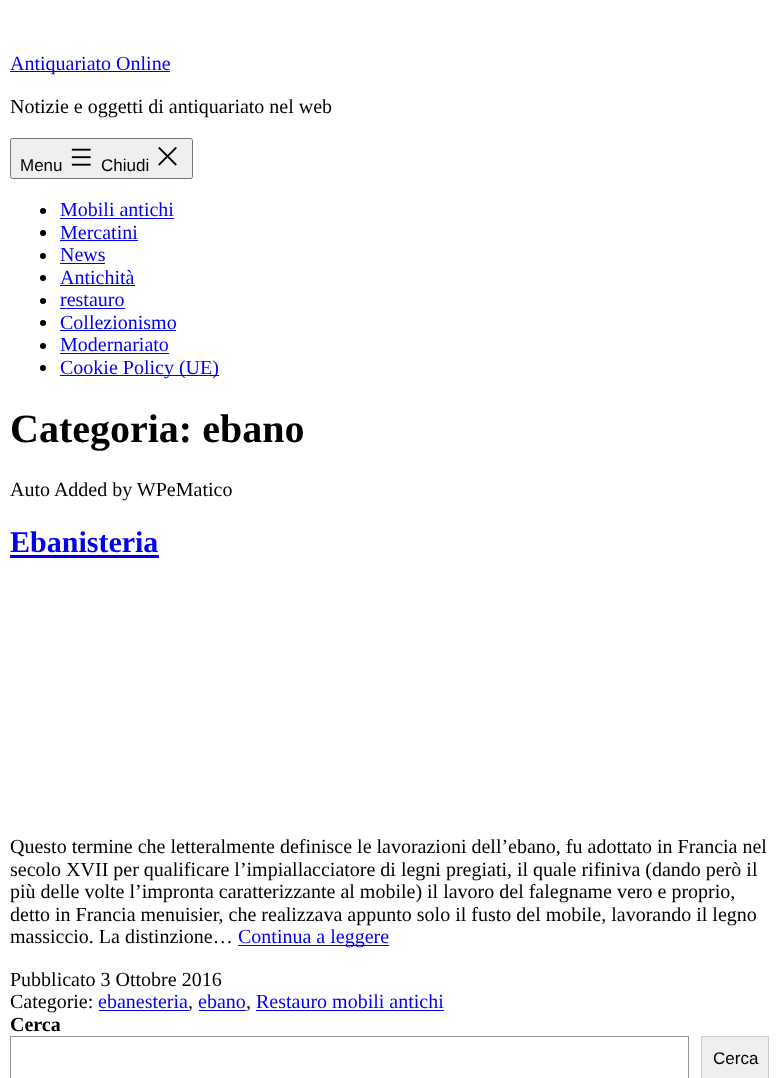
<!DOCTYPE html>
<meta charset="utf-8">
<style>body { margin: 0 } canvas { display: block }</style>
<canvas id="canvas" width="778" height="1078"></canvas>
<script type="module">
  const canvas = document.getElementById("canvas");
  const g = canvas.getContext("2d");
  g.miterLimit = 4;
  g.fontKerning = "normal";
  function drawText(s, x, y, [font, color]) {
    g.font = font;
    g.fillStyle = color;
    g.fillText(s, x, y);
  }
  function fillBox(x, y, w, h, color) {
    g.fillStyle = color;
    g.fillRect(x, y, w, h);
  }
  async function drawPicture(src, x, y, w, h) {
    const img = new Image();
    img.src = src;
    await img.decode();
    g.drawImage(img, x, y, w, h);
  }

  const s1 = ["20px Liberation Serif", "#0000EE"];
  const s2 = ["20px Liberation Serif", "#000000"];
  const s3 = ["17px Liberation Sans", "#000000"];
  const s4 = ["bold 40px Liberation Serif", "#000000"];
  const s5 = ["bold 30px Liberation Serif", "#0000EE"];
  const s6 = ["bold 20px Liberation Serif", "#000000"];

  fillBox(0, 0, 778, 1078, "#FFFFFF");
  fillBox(10, 71, 160, 1, "#0000EE");
  drawText("Antiquariato Online", 10, 70, s1);
  drawText("Notizie e oggetti di antiquariato nel web", 10, 113, s2);
  g.fillStyle = "#EFEFEF";
  g.beginPath();
  g.roundRect(10.5, 138.5, 182, 40, 2);
  g.fill();
  g.strokeStyle = "#767676";
  g.stroke();
  drawText("Menu", 20, 171, s3);
  await drawPicture("pic1.png", 71, 148, 20, 18);
  drawText("Chiudi", 101, 171, s3);
  await drawPicture("pic2.png", 158, 146, 19, 20);
  g.beginPath();
  g.arc(43, 211, 3, 0, Math.PI * 2);
  g.fill();
  drawText("Mobili antichi", 60, 216, s1);
  fillBox(60, 218, 114, 1, "#0000EE");
  g.fillStyle = "#000000";
  g.beginPath();
  g.arc(43, 233, 3, 0, Math.PI * 2);
  g.fill();
  drawText("Mercatini", 60, 239, s1);
  fillBox(60, 240, 78, 1, "#0000EE");
  g.fillStyle = "#000000";
  g.beginPath();
  g.arc(43, 256, 3, 0, Math.PI * 2);
  g.fill();
  drawText("News", 60, 261, s1);
  fillBox(60, 263, 45, 1, "#0000EE");
  g.fillStyle = "#000000";
  g.beginPath();
  g.arc(43, 278, 3, 0, Math.PI * 2);
  g.fill();
  drawText("Antichità", 60, 284, s1);
  fillBox(60, 285, 75, 1, "#0000EE");
  g.fillStyle = "#000000";
  g.beginPath();
  g.arc(43, 301, 3, 0, Math.PI * 2);
  g.fill();
  drawText("restauro", 60, 306, s1);
  fillBox(60, 308, 65, 1, "#0000EE");
  g.fillStyle = "#000000";
  g.beginPath();
  g.arc(43, 323, 3, 0, Math.PI * 2);
  g.fill();
  drawText("Collezionismo", 60, 329, s1);
  fillBox(60, 330, 116, 1, "#0000EE");
  g.fillStyle = "#000000";
  g.beginPath();
  g.arc(43, 346, 3, 0, Math.PI * 2);
  g.fill();
  drawText("Modernariato", 60, 351, s1);
  fillBox(60, 353, 109, 1, "#0000EE");
  g.fillStyle = "#000000";
  g.beginPath();
  g.arc(43, 368, 3, 0, Math.PI * 2);
  g.fill();
  fillBox(60, 375, 159, 1, "#0000EE");
  drawText("Cookie Policy (UE)", 60, 374, s1);
  drawText("Categoria: ebano", 10, 442, s4);
  drawText("Auto Added by WPeMatico", 10, 496, s2);
  drawText("Ebanisteria", 10, 552, s5);
  fillBox(10, 555, 149, 3, "#0000EE");
  drawText("Questo termine che letteralmente definisce le lavorazioni dell’ebano, fu adottato in Francia nel", 10, 853, s2);
  drawText("secolo XVII per qualificare l’impiallacciatore di legni pregiati, il quale rifiniva (dando però il", 10, 876, s2);
  drawText("più delle volte l’impronta caratterizzante al mobile) il lavoro del falegname vero e proprio,", 10, 898, s2);
  drawText("detto in Francia menuisier, che realizzava appunto solo il fusto del mobile, lavorando il legno", 10, 921, s2);
  drawText("massiccio. La distinzione…", 10, 943, s2);
  fillBox(238, 945, 151, 1, "#0000EE");
  drawText("Continua a leggere", 238, 943, s1);
  drawText("Pubblicato 3 Ottobre 2016", 10, 986, s2);
  drawText("Categorie:", 10, 1008, s2);
  drawText("ebanesteria", 98, 1008, s1);
  drawText(",", 188, 1008, s2);
  fillBox(99, 1010, 90, 1, "#0000EE");
  drawText("ebano", 198, 1008, s1);
  drawText(",", 246, 1008, s2);
  fillBox(199, 1010, 47, 1, "#0000EE");
  fillBox(256, 1010, 188, 1, "#0000EE");
  drawText("Restauro mobili antichi", 256, 1008, s1);
  drawText("Cerca", 10, 1031, s6);
  g.strokeStyle = "#949494";
  g.strokeRect(10.5, 1036.5, 678, 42);
  g.fillStyle = "#EFEFEF";
  g.beginPath();
  g.rect(701.5, 1036.5, 67, 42);
  g.fill();
  g.strokeStyle = "#CCCCCC";
  g.stroke();
  drawText("Cerca", 713, 1064, s3);
</script>
